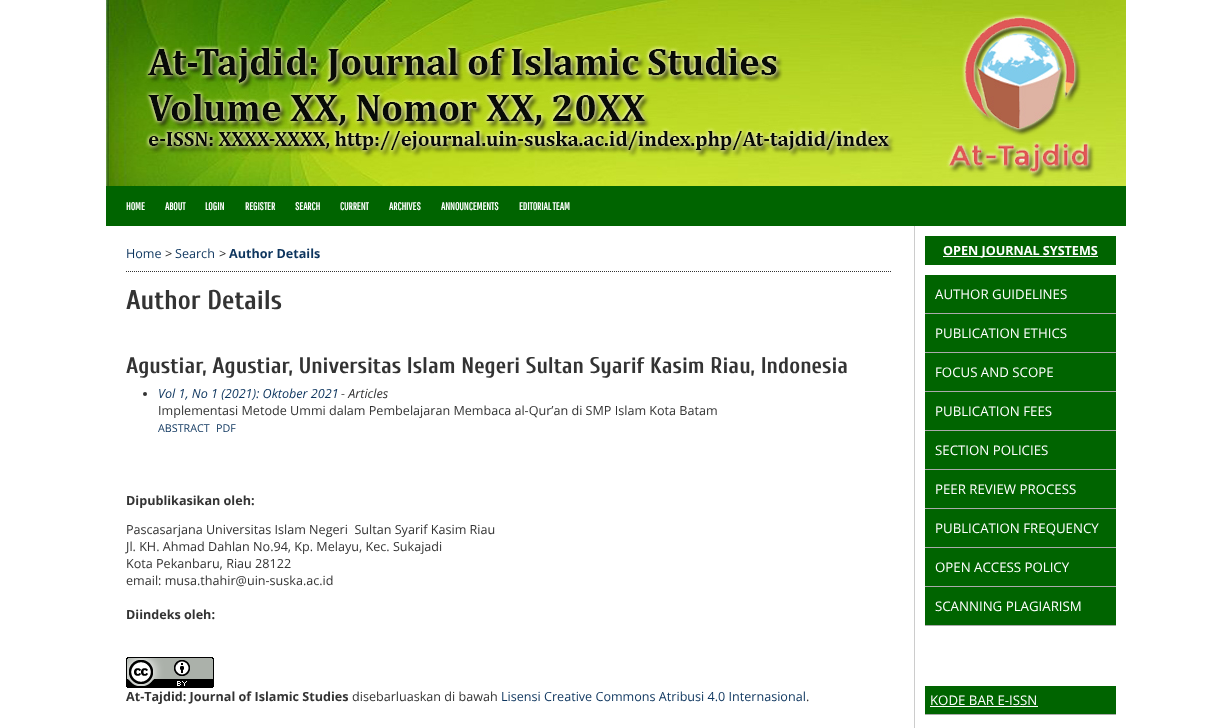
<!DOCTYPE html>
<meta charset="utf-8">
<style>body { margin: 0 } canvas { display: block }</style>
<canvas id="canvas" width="1232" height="728"></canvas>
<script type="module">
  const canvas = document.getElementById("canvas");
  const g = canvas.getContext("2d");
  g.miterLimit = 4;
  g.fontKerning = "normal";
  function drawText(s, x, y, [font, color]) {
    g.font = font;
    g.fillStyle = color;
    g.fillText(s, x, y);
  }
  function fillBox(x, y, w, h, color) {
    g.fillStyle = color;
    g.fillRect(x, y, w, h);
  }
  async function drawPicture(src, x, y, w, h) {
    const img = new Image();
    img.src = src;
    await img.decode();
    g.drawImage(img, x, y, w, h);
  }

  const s1 = ["bold 10.75px Pathway Gothic One", "#FFFFFF"];
  const s2 = ["12.6px Open Sans", "#0D355E"];
  const s3 = ["12.6px Open Sans", "#333333"];
  const s4 = ["bold 12.6px Open Sans", "#0D355E"];
  const s5 = ["bold 27px Cuprum", "#333333"];
  const s6 = ["bold 22.7px Cuprum", "#333333"];
  const s7 = ["italic 12.6px Open Sans", "#0D355E"];
  const s8 = ["italic 12.6px Open Sans", "#333333"];
  const s9 = ["10.75px Open Sans", "#0D355E"];
  const s10 = ["bold 12.6px Open Sans", "#333333"];
  const s11 = ["bold 12.6px Open Sans", "#FFFFFF"];
  const s12 = ["13.25px Open Sans", "#FFFFFF"];

  fillBox(0, 0, 1232, 728, "#FFFFFF");
  await drawPicture("pic1.png", 106, 0, 1020, 186);
  fillBox(106, 186, 1020, 40, "#006400");
  drawText("HOME", 126, 210, s1);
  drawText("ABOUT", 165, 210, s1);
  drawText("LOGIN", 205, 210, s1);
  drawText("REGISTER", 245, 210, s1);
  drawText("SEARCH", 295, 210, s1);
  drawText("CURRENT", 340, 210, s1);
  drawText("ARCHIVES", 389, 210, s1);
  drawText("ANNOUNCEMENTS", 441, 210, s1);
  drawText("EDITORIAL TEAM", 519, 210, s1);
  g.beginPath();
  g.moveTo(126, 271.5);
  g.lineTo(891, 271.5);
  g.strokeStyle = "#333333";
  g.setLineDash([1, 1]);
  g.stroke();
  drawText("Home", 126, 258, s2);
  drawText(">", 165, 258, s3);
  drawText("Search", 175, 258, s2);
  drawText(">", 219, 258, s3);
  drawText("Author Details", 229, 258, s4);
  drawText("Author Details", 126, 309, s5);
  drawText("Agustiar, Agustiar, Universitas Islam Negeri Sultan Syarif Kasim Riau, Indonesia", 126, 373, s6);
  g.beginPath();
  g.arc(145, 394, 2, 0, Math.PI * 2);
  g.fill();
  drawText("Vol 1, No 1 (2021): Oktober 2021", 158, 398, s7);
  drawText("- Articles", 341, 398, s8);
  drawText("Implementasi Metode Ummi dalam Pembelajaran Membaca al-Qur’an di SMP Islam Kota Batam", 158, 415, s3);
  drawText("ABSTRACT", 158, 432, s9);
  drawText("PDF", 216, 432, s9);
  drawText("Dipublikasikan oleh:", 126, 505, s10);
  drawText("Pascasarjana Universitas Islam Negeri  Sultan Syarif Kasim Riau", 126, 534, s3);
  drawText("Jl. KH. Ahmad Dahlan No.94, Kp. Melayu, Kec. Sukajadi", 126, 551, s3);
  drawText("Kota Pekanbaru, Riau 28122", 126, 568, s3);
  drawText("email: musa.thahir@uin-suska.ac.id", 126, 585, s3);
  drawText("Diindeks oleh:", 126, 619, s10);
  await drawPicture("pic2.png", 126, 657, 88, 31);
  drawText("At-Tajdid: Journal of Islamic Studies", 126, 701, s10);
  drawText("disebarluaskan di bawah", 352, 701, s3);
  drawText("Lisensi Creative Commons Atribusi 4.0 Internasional", 501, 701, s2);
  drawText(".", 806, 701, s3);
  fillBox(914, 226, 1, 502, "#CCCCCC");
  fillBox(925, 236, 191, 29, "#006400");
  fillBox(943, 256, 155, 1, "#FFFFFF");
  drawText("OPEN JOURNAL SYSTEMS", 943, 255, s11);
  fillBox(925, 275, 191, 38, "#006400");
  fillBox(925, 313, 191, 1, "#AAAAAA");
  drawText("AUTHOR GUIDELINES", 935, 299, s12);
  fillBox(925, 314, 191, 38, "#006400");
  fillBox(925, 352, 191, 1, "#AAAAAA");
  drawText("PUBLICATION ETHICS", 935, 338, s12);
  fillBox(925, 353, 191, 38, "#006400");
  fillBox(925, 391, 191, 1, "#AAAAAA");
  drawText("FOCUS AND SCOPE", 935, 377, s12);
  fillBox(925, 392, 191, 38, "#006400");
  fillBox(925, 430, 191, 1, "#AAAAAA");
  drawText("PUBLICATION FEES", 935, 416, s12);
  fillBox(925, 431, 191, 38, "#006400");
  fillBox(925, 469, 191, 1, "#AAAAAA");
  drawText("SECTION POLICIES", 935, 455, s12);
  fillBox(925, 470, 191, 38, "#006400");
  fillBox(925, 508, 191, 1, "#AAAAAA");
  drawText("PEER REVIEW PROCESS", 935, 494, s12);
  fillBox(925, 509, 191, 38, "#006400");
  fillBox(925, 547, 191, 1, "#AAAAAA");
  drawText("PUBLICATION FREQUENCY", 935, 533, s12);
  fillBox(925, 548, 191, 38, "#006400");
  fillBox(925, 586, 191, 1, "#AAAAAA");
  drawText("OPEN ACCESS POLICY", 935, 572, s12);
  fillBox(925, 587, 191, 38, "#006400");
  fillBox(925, 625, 191, 1, "#AAAAAA");
  drawText("SCANNING PLAGIARISM", 935, 611, s12);
  fillBox(925, 686, 191, 28, "#006400");
  fillBox(925, 714, 191, 1, "#AAAAAA");
  drawText("KODE BAR E-ISSN", 930, 705, s12);
  fillBox(930, 706, 108, 1, "#FFFFFF");
</script>
